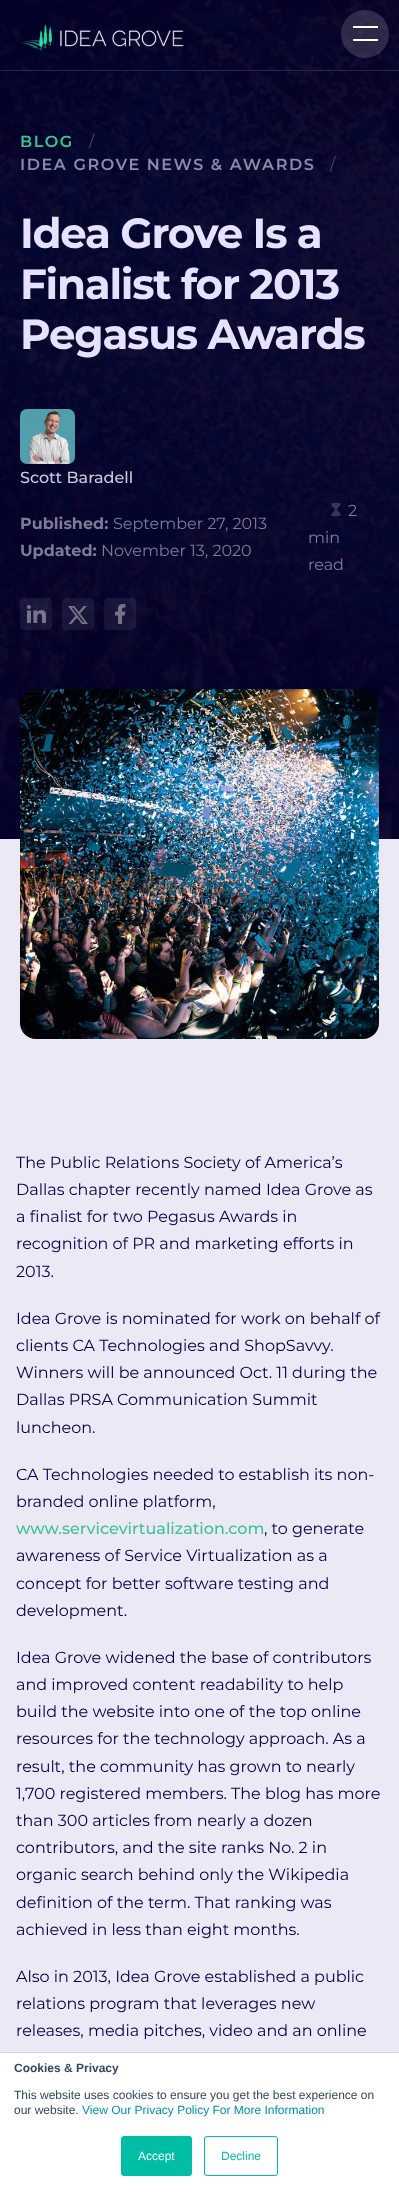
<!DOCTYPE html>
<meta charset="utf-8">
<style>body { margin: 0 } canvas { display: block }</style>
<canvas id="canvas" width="399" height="2196"></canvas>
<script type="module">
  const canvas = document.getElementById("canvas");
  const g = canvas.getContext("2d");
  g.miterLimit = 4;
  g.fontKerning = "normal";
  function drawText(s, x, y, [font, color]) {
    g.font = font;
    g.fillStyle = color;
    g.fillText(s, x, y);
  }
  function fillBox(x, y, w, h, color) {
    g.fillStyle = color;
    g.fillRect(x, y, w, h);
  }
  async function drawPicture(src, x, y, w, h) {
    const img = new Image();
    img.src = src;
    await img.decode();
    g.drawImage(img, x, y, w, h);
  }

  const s1 = ["600 16px Montserrat", "#3FC195"];
  const s2 = ["16px Montserrat", "#48486C"];
  const s3 = ["600 16px Montserrat", "#8D8BAC"];
  const s4 = ["bold 42px Montserrat", "#E5E2FF"];
  const s5 = ["500 16px Montserrat", "#CCCAE1"];
  const s6 = ["bold 16px Montserrat", "#7D7B99"];
  const s7 = ["16px Montserrat", "#7D7B99"];
  const s8 = ["16px Montserrat", "#060146"];
  const s9 = ["500 16px Montserrat", "#3FC195"];
  const s10 = ["bold 12px Liberation Sans", "#33475B"];
  const s11 = ["12px Liberation Sans", "#33475B"];
  const s12 = ["12px Liberation Sans", "#0091AE"];
  const s13 = ["12px Liberation Sans", "#FFFFFF"];
  const s14 = ["12px Liberation Sans", "#00BDA5"];

  fillBox(0, 0, 399, 2196, "#FFFFFF");
  await drawPicture("pic2.png", 0, 0, 399, 839);
  fillBox(0, 70, 399, 1, "#28254B");
  await drawPicture("pic1.png", 21, 24, 163, 27);
  g.fillStyle = "rgba(255, 255, 255, 0.15)";
  g.beginPath();
  g.arc(365, 34, 24, 0, Math.PI * 2);
  g.fill();
  fillBox(353, 26, 25, 2, "#FFFFFF");
  fillBox(353, 39, 25, 2, "#FFFFFF");
  g.letterSpacing = "1.6px";
  drawText("BLOG", 20, 147, s1);
  g.letterSpacing = "0px";
  drawText("/", 89, 147, s2);
  g.letterSpacing = "1.6px";
  drawText("IDEA GROVE NEWS & AWARDS", 20, 170, s3);
  g.letterSpacing = "0px";
  drawText("/", 330, 170, s2);
  g.letterSpacing = "-1.25px";
  drawText("Idea Grove Is a", 20, 248, s4);
  drawText("Finalist for 2013", 20, 299, s4);
  drawText("Pegasus Awards", 20, 349, s4);
  await drawPicture("pic3.png", 20, 409, 55, 55);
  g.letterSpacing = "0px";
  drawText("Scott Baradell", 20, 483, s5);
  drawText("Published:", 20, 529, s6);
  drawText("September 27, 2013", 113, 529, s7);
  drawText("Updated:", 20, 556, s6);
  drawText("November 13, 2020", 101, 556, s7);
  await drawPicture("pic4.png", 331, 502, 10, 15);
  drawText("2", 348, 516, s7);
  drawText("min", 308, 543, s7);
  drawText("read", 308, 570, s7);
  await drawPicture("pic5.png", 20, 598, 32, 32);
  await drawPicture("pic6.png", 62, 598, 32, 32);
  await drawPicture("pic7.png", 104, 598, 32, 32);
  fillBox(0, 839, 399, 1213, "#EAE9F5");
  await drawPicture("pic8.png", 20, 689, 359, 350);
  drawText("The Public Relations Society of America’s", 16, 1168, s8);
  drawText("Dallas chapter recently named Idea Grove as", 16, 1195, s8);
  drawText("a finalist for two Pegasus Awards in", 16, 1222, s8);
  drawText("recognition of PR and marketing efforts in", 16, 1249, s8);
  drawText("2013.", 16, 1277, s8);
  drawText("Idea Grove is nominated for work on behalf of", 16, 1324, s8);
  drawText("clients CA Technologies and ShopSavvy.", 16, 1351, s8);
  drawText("Winners will be announced Oct. 11 during the", 16, 1378, s8);
  drawText("Dallas PRSA Communication Summit", 16, 1405, s8);
  drawText("luncheon.", 16, 1433, s8);
  drawText("CA Technologies needed to establish its non-", 16, 1480, s8);
  drawText("branded online platform,", 16, 1507, s8);
  drawText("www.servicevirtualization.com", 16, 1534, s9);
  drawText(", to generate", 264, 1534, s8);
  drawText("awareness of Service Virtualization as a", 16, 1561, s8);
  drawText("concept for better software testing and", 16, 1589, s8);
  drawText("development.", 16, 1616, s8);
  drawText("Idea Grove widened the base of contributors", 16, 1663, s8);
  drawText("and improved content readability to help", 16, 1690, s8);
  drawText("build the website into one of the top online", 16, 1717, s8);
  drawText("resources for the technology approach. As a", 16, 1744, s8);
  drawText("result, the community has grown to nearly", 16, 1772, s8);
  drawText("1,700 registered members. The blog has more", 16, 1799, s8);
  drawText("than 300 articles from nearly a dozen", 16, 1826, s8);
  drawText("contributors, and the site ranks No. 2 in", 16, 1853, s8);
  drawText("organic search behind only the Wikipedia", 16, 1880, s8);
  drawText("definition of the term. That ranking was", 16, 1908, s8);
  drawText("achieved in less than eight months.", 16, 1935, s8);
  drawText("Also in 2013, Idea Grove established a public", 16, 1982, s8);
  drawText("relations program that leverages new", 16, 2009, s8);
  drawText("releases, media pitches, video and an online", 16, 2036, s8);
  g.fillStyle = "#EAF0F6";
  g.filter = "blur(1.5px)";
  g.beginPath();
  g.rect(0, 2051, 399, 144);
  g.fill();
  g.filter = "none";
  fillBox(0, 2053, 399, 143, "#FFFFFF");
  fillBox(0, 2052, 399, 1, "#CBD6E2");
  drawText("Cookies & Privacy", 14, 2072, s10);
  drawText("This website uses cookies to ensure you get the best experience on", 14, 2099, s11);
  drawText("our website.", 14, 2114, s11);
  drawText("View Our Privacy Policy For More Information", 82, 2114, s12);
  g.fillStyle = "#00BDA5";
  g.beginPath();
  g.roundRect(121.5, 2136.5, 70, 39, 2.5);
  g.fill();
  g.strokeStyle = "#00BDA5";
  g.stroke();
  drawText("Accept", 138, 2160, s13);
  g.beginPath();
  g.roundRect(204.5, 2136.5, 73, 39, 2.5);
  g.stroke();
  drawText("Decline", 221, 2160, s14);
</script>
